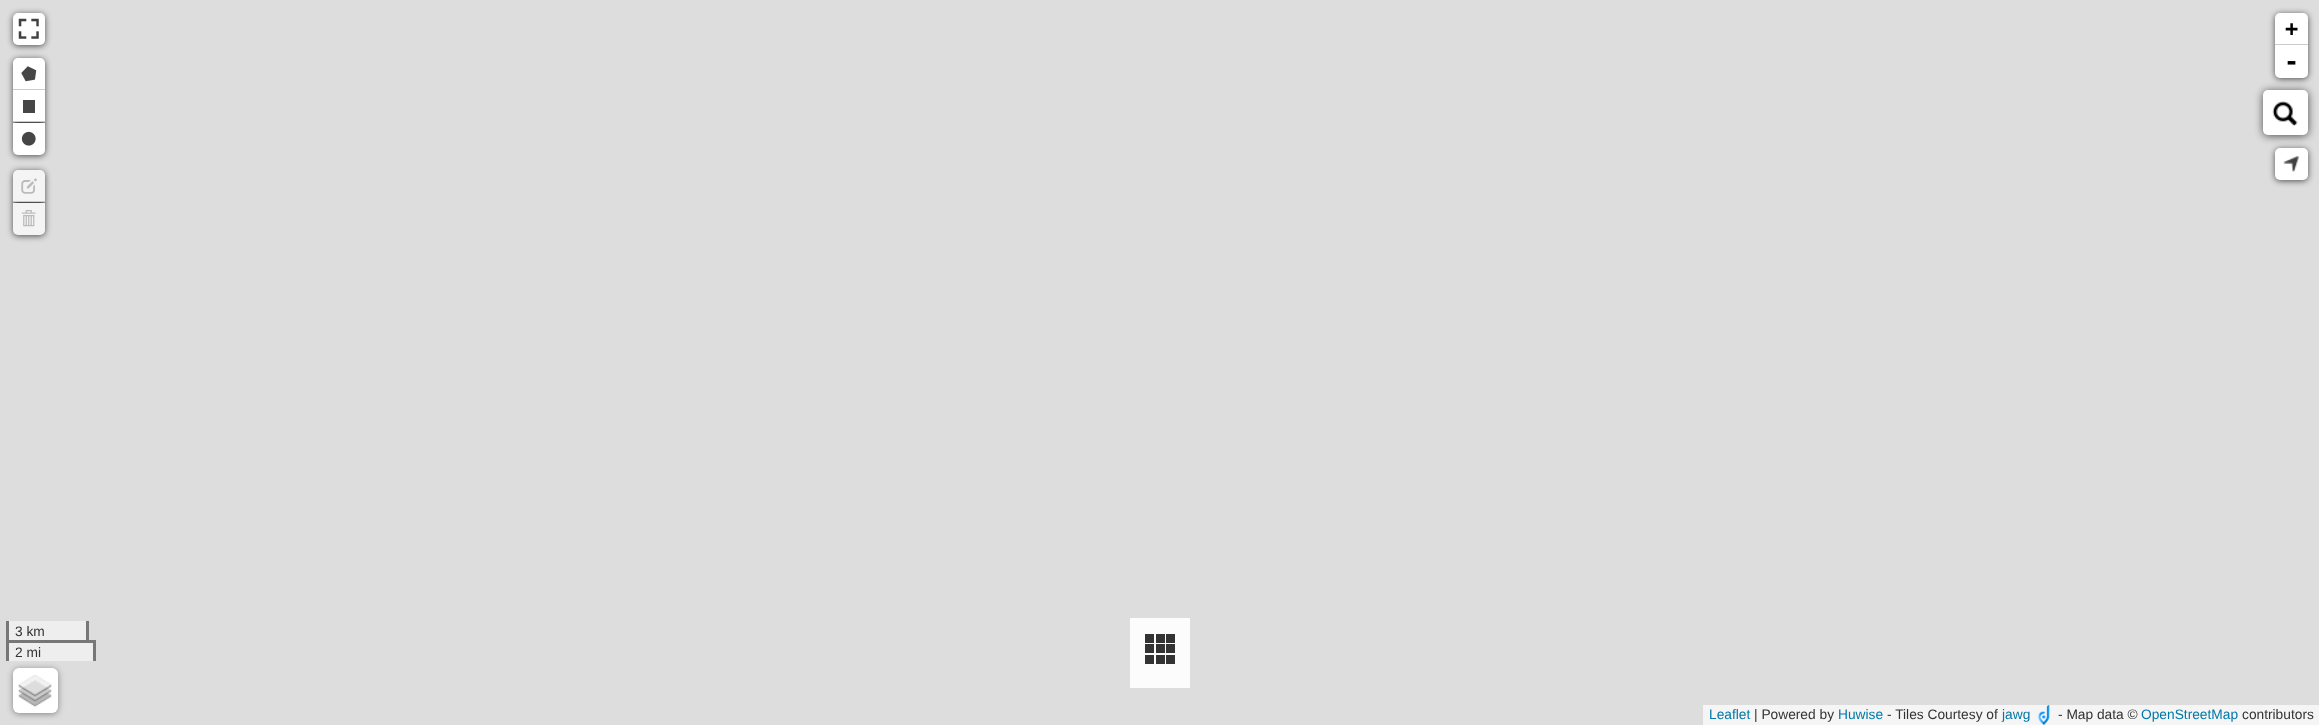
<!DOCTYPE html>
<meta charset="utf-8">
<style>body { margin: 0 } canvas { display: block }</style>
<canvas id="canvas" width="2319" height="725"></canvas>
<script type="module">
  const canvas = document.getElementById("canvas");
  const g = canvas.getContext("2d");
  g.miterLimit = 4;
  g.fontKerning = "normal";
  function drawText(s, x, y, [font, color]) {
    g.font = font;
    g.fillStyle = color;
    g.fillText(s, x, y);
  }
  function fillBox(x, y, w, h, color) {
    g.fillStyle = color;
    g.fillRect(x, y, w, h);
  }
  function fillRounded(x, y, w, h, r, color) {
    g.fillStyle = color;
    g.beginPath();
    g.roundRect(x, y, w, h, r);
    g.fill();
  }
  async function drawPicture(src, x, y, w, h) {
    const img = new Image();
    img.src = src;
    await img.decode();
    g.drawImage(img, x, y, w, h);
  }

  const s1 = ["bold 22px DejaVu Sans Mono", "#000000"];
  const s2 = ["bold 25px DejaVu Sans Mono", "#000000"];
  const s3 = ["13.75px Liberation Sans", "#333333"];
  const s4 = ["13.75px Liberation Sans", "#0078A8"];

  fillBox(0, 0, 2319, 725, "#DDDDDD");
  fillBox(9, 643, 84, 18, "#EEEEEE");
  g.fillStyle = "rgba(0, 0, 0, 0.65)";
  g.filter = "blur(3px)";
  g.beginPath();
  g.roundRect(13, 14, 32, 32, 5);
  g.fill();
  g.filter = "none";
  fillRounded(13, 13, 32, 32, 5, "#FFFFFF");
  await drawPicture("pic1.png", 18, 18, 21, 21);
  g.fillStyle = "rgba(0, 0, 0, 0.65)";
  g.filter = "blur(3px)";
  g.beginPath();
  g.roundRect(13, 59, 32, 97, 5);
  g.fill();
  g.filter = "none";
  g.fillStyle = "#FFFFFF";
  g.beginPath();
  g.roundRect(13, 58, 32, 31, [5, 5, 0, 0]);
  g.fill();
  await drawPicture("pic2.png", 21, 66, 16, 16);
  fillBox(13, 89, 32, 1, "#CCCCCC");
  fillBox(13, 90, 32, 31, "#FFFFFF");
  fillBox(23, 100, 12, 13, "#464646");
  fillBox(13, 121, 32, 1, "#CCCCCC");
  g.fillStyle = "#FFFFFF";
  g.beginPath();
  g.roundRect(13, 123, 32, 32, [0, 0, 5, 5]);
  g.fill();
  await drawPicture("pic3.png", 21, 131, 15, 15);
  g.fillStyle = "rgba(0, 0, 0, 0.65)";
  g.filter = "blur(3px)";
  g.beginPath();
  g.roundRect(13, 171, 32, 65, 5);
  g.fill();
  g.filter = "none";
  g.fillStyle = "#F4F4F4";
  g.beginPath();
  g.roundRect(13, 170, 32, 31, [5, 5, 0, 0]);
  g.fill();
  await drawPicture("pic4.png", 21, 178, 16, 16);
  fillBox(13, 201, 32, 1, "#CCCCCC");
  g.fillStyle = "#F4F4F4";
  g.beginPath();
  g.roundRect(13, 203, 32, 32, [0, 0, 5, 5]);
  g.fill();
  await drawPicture("pic5.png", 21, 210, 15, 17);
  g.fillStyle = "rgba(0, 0, 0, 0.65)";
  g.filter = "blur(3px)";
  g.beginPath();
  g.roundRect(2275, 14, 33, 65, 5);
  g.fill();
  g.filter = "none";
  g.fillStyle = "#FFFFFF";
  g.beginPath();
  g.roundRect(2275, 13, 33, 32, [5, 5, 0, 0]);
  g.fill();
  fillBox(2275, 44, 33, 1, "#CCCCCC");
  drawText("+", 2285, 36, s1);
  g.fillStyle = "#FFFFFF";
  g.beginPath();
  g.roundRect(2275, 45, 33, 33, [0, 0, 5, 5]);
  g.fill();
  drawText("-", 2284, 70, s2);
  g.fillStyle = "rgba(0, 0, 0, 0.65)";
  g.filter = "blur(4.5px)";
  g.beginPath();
  g.roundRect(2263, 91, 45, 45, 5);
  g.fill();
  g.filter = "none";
  fillRounded(2263, 90, 45, 45, 5, "#FFFFFF");
  await drawPicture("pic6.png", 2272, 101, 26, 25);
  g.fillStyle = "rgba(0, 0, 0, 0.65)";
  g.filter = "blur(3px)";
  g.beginPath();
  g.roundRect(2275, 149, 33, 32, 5);
  g.fill();
  g.filter = "none";
  fillRounded(2275, 148, 33, 32, 5, "#FFFFFF");
  await drawPicture("pic7.png", 2283, 156, 16, 16);
  fillBox(9, 621, 77, 19, "#EEEEEE");
  fillBox(86, 621, 3, 22, "#777777");
  fillBox(6, 621, 3, 22, "#777777");
  drawText("3 km", 15, 636, s3);
  fillBox(6, 640, 89, 3, "#777777");
  fillBox(93, 640, 3, 21, "#777777");
  fillBox(6, 640, 3, 21, "#777777");
  drawText("2 mi", 15, 657, s3);
  g.fillStyle = "rgba(0, 0, 0, 0.4)";
  g.filter = "blur(3px)";
  g.beginPath();
  g.roundRect(13, 669, 45, 45, 6);
  g.fill();
  g.filter = "none";
  fillRounded(13, 668, 45, 45, 6, "#FFFFFF");
  await drawPicture("pic8.png", 18, 675, 34, 32);
  fillBox(1703, 705, 616, 20, "#F5F5F5");
  drawText("Leaflet", 1709, 719, s4);
  drawText("| Powered by", 1754, 719, s3);
  drawText("Huwise", 1838, 719, s4);
  drawText("- Tiles Courtesy of", 1887, 719, s3);
  drawText("jawg", 2002, 719, s4);
  await drawPicture("pic9.png", 2038, 705, 12, 20);
  drawText("- Map data ©", 2058, 719, s3);
  drawText("OpenStreetMap", 2141, 719, s4);
  drawText("contributors", 2242, 719, s3);
  fillBox(1130, 618, 60, 70, "#FCFCFC");
  await drawPicture("pic10.png", 1145, 634, 30, 30);
</script>
